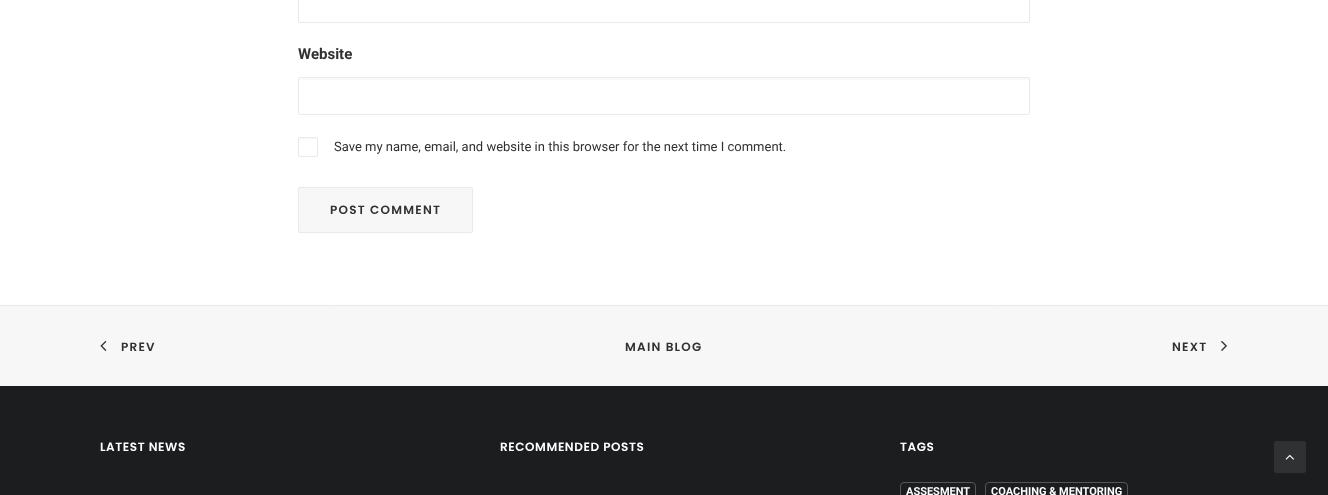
<!DOCTYPE html>
<meta charset="utf-8">
<style>body { margin: 0 } canvas { display: block }</style>
<canvas id="canvas" width="1328" height="495"></canvas>
<script type="module">
  const canvas = document.getElementById("canvas");
  const g = canvas.getContext("2d");
  g.miterLimit = 4;
  g.fontKerning = "normal";
  function drawText(s, x, y, [font, color]) {
    g.font = font;
    g.fillStyle = color;
    g.fillText(s, x, y);
  }
  function fillBox(x, y, w, h, color) {
    g.fillStyle = color;
    g.fillRect(x, y, w, h);
  }
  async function drawPicture(src, x, y, w, h) {
    const img = new Image();
    img.src = src;
    await img.decode();
    g.drawImage(img, x, y, w, h);
  }

  const s1 = ["bold 15px Roboto", "#303133"];
  const s2 = ["13px Roboto", "#303133"];
  const s3 = ["600 12px Poppins", "#303133"];
  const s4 = ["600 12px Poppins", "#FFFFFF"];
  const s5 = ["bold 11px Roboto", "#FFFFFF"];

  fillBox(0, 0, 1328, 495, "#FFFFFF");
  g.beginPath();
  g.roundRect(298.5, -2.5, 731, 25, 1.5);
  g.strokeStyle = "#EAEAEA";
  g.stroke();
  drawText("Website", 298, 59, s1);
  g.fillStyle = "#F9F9F9";
  g.beginPath();
  g.moveTo(300, 80);
  g.lineTo(1029, 80);
  g.bezierCurveTo(1029, 79, 1029, 78, 1028, 78);
  g.lineTo(300, 78);
  g.lineTo(299, 79);
  g.lineTo(299, 81);
  g.closePath();
  g.fill();
  g.beginPath();
  g.roundRect(298.5, 77.5, 731, 37, 1.5);
  g.stroke();
  g.beginPath();
  g.moveTo(300, 140);
  g.bezierCurveTo(303, 140, 316, 139, 317, 140);
  g.bezierCurveTo(317, 137.5, 316, 138, 313.5, 138);
  g.lineTo(302.5, 138);
  g.bezierCurveTo(298.5, 138, 299, 137.5, 299, 141.5);
  g.bezierCurveTo(299, 140.5, 299.5, 140, 300, 140);
  g.closePath();
  g.fill();
  g.beginPath();
  g.roundRect(298.5, 137.5, 19, 19, 1.5);
  g.stroke();
  drawText("Save my name, email, and website in this browser for the next time I comment.", 334, 151, s2);
  g.fillStyle = "#F7F7F7";
  g.beginPath();
  g.roundRect(298.5, 187.5, 174, 45, 1.5);
  g.fill();
  g.stroke();
  g.letterSpacing = "1.25px";
  drawText("POST COMMENT", 330, 214, s3);
  g.fillStyle = "#F7F7F7";
  g.beginPath();
  g.rect(-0.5, 305.5, 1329, 81);
  g.fill();
  g.stroke();
  await drawPicture("pic1.png", 100, 340, 7, 11);
  drawText("PREV", 121, 351, s3);
  drawText("MAIN BLOG", 625, 351, s3);
  drawText("NEXT", 1172, 351, s3);
  await drawPicture("pic2.png", 1221, 341, 6, 10);
  fillBox(0, 386, 1328, 109, "#1B1D1F");
  g.letterSpacing = "0.6px";
  drawText("LATEST NEWS", 100, 451, s4);
  drawText("RECOMMENDED POSTS", 500, 451, s4);
  drawText("TAGS", 900, 451, s4);
  g.beginPath();
  g.roundRect(900.5, 482.5, 75, 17, 3.5);
  g.strokeStyle = "#545657";
  g.stroke();
  g.letterSpacing = "0px";
  drawText("ASSESMENT", 906, 495, s5);
  g.beginPath();
  g.roundRect(985.5, 482.5, 142, 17, 3.5);
  g.stroke();
  drawText("COACHING & MENTORING", 991, 495, s5);
  g.fillStyle = "#303133";
  g.beginPath();
  g.roundRect(1274.5, 441.5, 31, 31, 1.5);
  g.fill();
  g.strokeStyle = "#303133";
  g.stroke();
  await drawPicture("pic3.png", 1285, 454, 9, 6);
</script>
